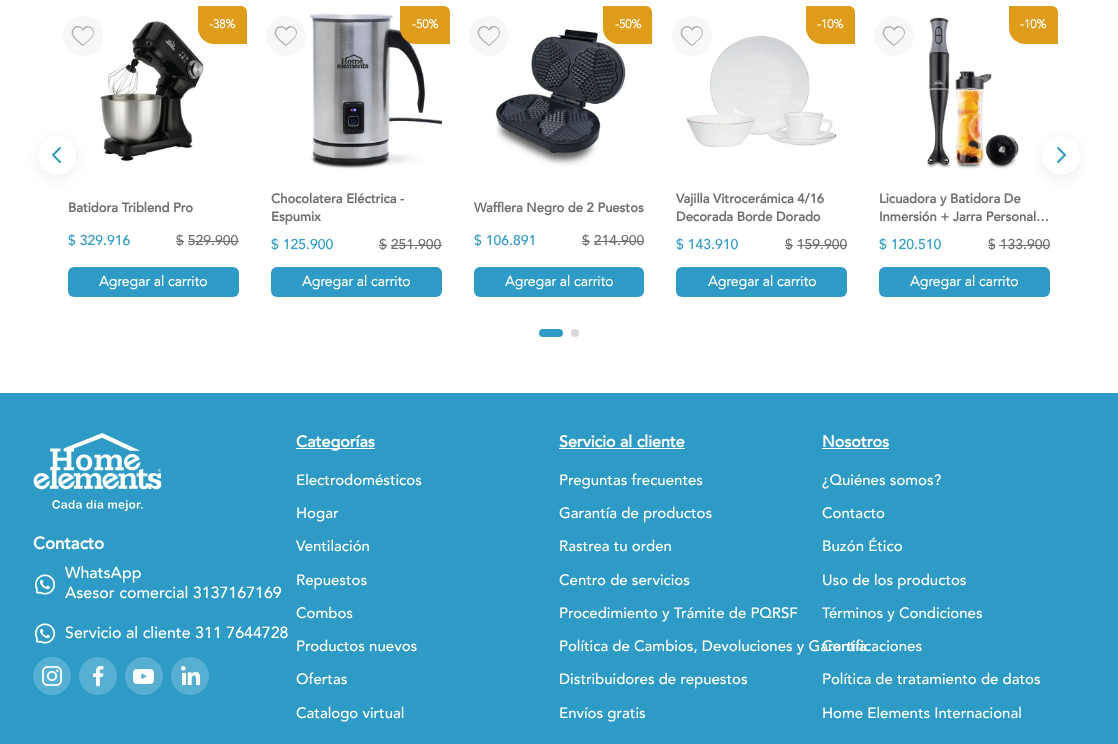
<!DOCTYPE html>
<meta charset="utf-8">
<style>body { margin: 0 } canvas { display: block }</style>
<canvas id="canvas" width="1118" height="744"></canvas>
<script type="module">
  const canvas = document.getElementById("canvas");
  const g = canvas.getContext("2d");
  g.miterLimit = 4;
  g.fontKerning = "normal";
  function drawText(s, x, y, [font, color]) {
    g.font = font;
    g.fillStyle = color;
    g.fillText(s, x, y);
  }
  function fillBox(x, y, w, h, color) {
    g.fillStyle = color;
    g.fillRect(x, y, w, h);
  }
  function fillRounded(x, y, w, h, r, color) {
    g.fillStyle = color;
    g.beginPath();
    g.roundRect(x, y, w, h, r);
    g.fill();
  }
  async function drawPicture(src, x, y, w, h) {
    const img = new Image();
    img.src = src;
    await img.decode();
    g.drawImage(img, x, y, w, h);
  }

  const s1 = ["bold 12px 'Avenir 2'", "#FFFFFF"];
  const s2 = ["bold 13px Avenir", "#6F6F6E"];
  const s3 = ["500 14px Avenir", "#2E9BC6"];
  const s4 = ["500 14px Avenir", "#6F6F6E"];
  const s5 = ["bold 14px 'Avenir 2'", "#FFFFFF"];
  const s6 = ["bold 17px Avenir", "#FFFFFF"];
  const s7 = ["500 16px Avenir", "#FFFFFF"];
  const s8 = ["bold 16px Avenir", "#FFFFFF"];
  const s9 = ["500 15px Avenir", "#FFFFFF"];

  fillBox(0, 0, 1118, 744, "#FFFFFF");
  g.fillStyle = "rgba(0, 0, 0, 0.07)";
  g.filter = "blur(7px)";
  g.beginPath();
  g.roundRect(38, 140, 38, 39, 19);
  g.fill();
  g.filter = "none";
  fillRounded(38, 136, 38, 39, 19, "#FFFFFF");
  g.beginPath();
  g.moveTo(60, 148);
  g.lineTo(53, 155);
  g.lineTo(60, 162);
  g.strokeStyle = "#2E9BC6";
  g.lineWidth = 2;
  g.lineCap = "round";
  g.lineJoin = "round";
  g.stroke();
  await drawPicture("pic2.png", 100, 20, 104, 142);
  g.fillStyle = "#F7F7F7";
  g.beginPath();
  g.arc(83, 36, 20, 0, Math.PI * 2);
  g.fill();
  await drawPicture("pic1.png", 71, 26, 23, 20);
  g.fillStyle = "#DF9B1A";
  g.beginPath();
  g.roundRect(198, 6, 49, 38, [0, 6, 0, 16]);
  g.fill();
  drawText("-38%", 209, 28, s1);
  drawText("Batidora Triblend Pro", 68, 212, s2);
  drawText("$ 329.916", 68, 245, s3);
  drawText("$ 529.900", 176, 245, s4);
  fillBox(176, 241, 8, 1, "#6F6F6E");
  fillBox(188, 241, 51, 1, "#6F6F6E");
  fillRounded(68, 267, 171, 30, 6, "#2E9BC6");
  drawText("Agregar al carrito", 99, 286, s5);
  g.fillStyle = "#F7F7F7";
  g.beginPath();
  g.arc(286, 36, 20, 0, Math.PI * 2);
  g.fill();
  await drawPicture("pic1.png", 274, 26, 23, 20);
  await drawPicture("pic3.png", 310, 13, 132, 156);
  g.fillStyle = "#DF9B1A";
  g.beginPath();
  g.roundRect(400, 6, 50, 38, [0, 6, 0, 16]);
  g.fill();
  drawText("-50%", 412, 28, s1);
  drawText("Chocolatera Eléctrica -", 271, 203, s2);
  drawText("Espumix", 271, 221, s2);
  drawText("$ 125.900", 271, 249, s3);
  drawText("$ 251.900", 379, 249, s4);
  fillBox(379, 245, 8, 1, "#6F6F6E");
  fillBox(391, 245, 51, 1, "#6F6F6E");
  fillRounded(271, 267, 171, 30, 6, "#2E9BC6");
  drawText("Agregar al carrito", 302, 286, s5);
  await drawPicture("pic4.png", 495, 28, 131, 138);
  g.fillStyle = "#F7F7F7";
  g.beginPath();
  g.arc(489, 36, 20, 0, Math.PI * 2);
  g.fill();
  await drawPicture("pic1.png", 477, 26, 23, 20);
  g.fillStyle = "#DF9B1A";
  g.beginPath();
  g.roundRect(603, 6, 49, 38, [0, 6, 0, 16]);
  g.fill();
  drawText("-50%", 615, 28, s1);
  drawText("Wafflera Negro de 2 Puestos", 474, 212, s2);
  drawText("$ 106.891", 474, 245, s3);
  drawText("$ 214.900", 582, 245, s4);
  fillBox(582, 241, 8, 1, "#6F6F6E");
  fillBox(594, 241, 50, 1, "#6F6F6E");
  fillRounded(474, 267, 170, 30, 6, "#2E9BC6");
  drawText("Agregar al carrito", 505, 286, s5);
  await drawPicture("pic5.png", 686, 36, 151, 111);
  g.fillStyle = "#F7F7F7";
  g.beginPath();
  g.arc(692, 36, 20, 0, Math.PI * 2);
  g.fill();
  await drawPicture("pic1.png", 680, 26, 23, 20);
  g.fillStyle = "#DF9B1A";
  g.beginPath();
  g.roundRect(806, 6, 49, 38, [0, 6, 0, 16]);
  g.fill();
  drawText("-10%", 817, 28, s1);
  drawText("Vajilla Vitrocerámica 4/16", 676, 203, s2);
  drawText("Decorada Borde Dorado", 676, 221, s2);
  drawText("$ 143.910", 676, 249, s3);
  drawText("$ 159.900", 785, 249, s4);
  fillBox(785, 245, 8, 1, "#6F6F6E");
  fillBox(797, 245, 50, 1, "#6F6F6E");
  fillRounded(676, 267, 171, 30, 6, "#2E9BC6");
  drawText("Agregar al carrito", 708, 286, s5);
  g.fillStyle = "#F7F7F7";
  g.beginPath();
  g.arc(894, 36, 20, 0, Math.PI * 2);
  g.fill();
  await drawPicture("pic1.png", 882, 26, 23, 20);
  await drawPicture("pic6.png", 927, 17, 92, 152);
  g.fillStyle = "#DF9B1A";
  g.beginPath();
  g.roundRect(1009, 6, 49, 38, [0, 6, 0, 16]);
  g.fill();
  drawText("-10%", 1020, 28, s1);
  drawText("Licuadora y Batidora De", 879, 203, s2);
  drawText("Inmersión + Jarra Personal…", 879, 221, s2);
  drawText("$ 120.510", 879, 249, s3);
  drawText("$ 133.900", 988, 249, s4);
  fillBox(988, 245, 7, 1, "#6F6F6E");
  fillBox(999, 245, 51, 1, "#6F6F6E");
  fillRounded(879, 267, 171, 30, 6, "#2E9BC6");
  drawText("Agregar al carrito", 910, 286, s5);
  g.fillStyle = "rgba(0, 0, 0, 0.07)";
  g.filter = "blur(7px)";
  g.beginPath();
  g.roundRect(1042, 140, 38, 39, 19);
  g.fill();
  g.filter = "none";
  fillRounded(1042, 136, 38, 39, 19, "#FFFFFF");
  g.beginPath();
  g.moveTo(1058, 162);
  g.lineTo(1065, 155);
  g.lineTo(1058, 148);
  g.stroke();
  fillRounded(539, 329, 24, 8, 4, "#2E9BC6");
  g.fillStyle = "#D9D9D9";
  g.beginPath();
  g.arc(575, 333, 4, 0, Math.PI * 2);
  g.fill();
  fillBox(0, 393, 1118, 351, "#2E9BC6");
  await drawPicture("pic7.png", 33, 433, 129, 78);
  drawText("Contacto", 33, 549, s6);
  await drawPicture("pic8.png", 34, 574, 22, 21);
  drawText("WhatsApp", 65, 578, s7);
  drawText("Asesor comercial 3137167169", 65, 598, s7);
  await drawPicture("pic8.png", 34, 623, 22, 21);
  drawText("Servicio al cliente 311 7644728", 65, 638, s7);
  await drawPicture("pic9.png", 33, 657, 38, 38);
  await drawPicture("pic10.png", 79, 657, 38, 38);
  await drawPicture("pic11.png", 125, 657, 38, 38);
  await drawPicture("pic12.png", 171, 657, 38, 38);
  fillBox(296, 448, 79, 1, "#FFFFFF");
  drawText("Categorías", 296, 447, s8);
  drawText("Electrodomésticos", 296, 485, s9);
  drawText("Hogar", 296, 518, s9);
  drawText("Ventilación", 296, 551, s9);
  drawText("Repuestos", 296, 585, s9);
  drawText("Combos", 296, 618, s9);
  drawText("Productos nuevos", 296, 651, s9);
  drawText("Ofertas", 296, 684, s9);
  drawText("Catalogo virtual", 296, 718, s9);
  drawText("Servicio al cliente", 559, 447, s8);
  fillBox(559, 448, 126, 1, "#FFFFFF");
  drawText("Preguntas frecuentes", 559, 485, s9);
  drawText("Garantía de productos", 559, 518, s9);
  drawText("Rastrea tu orden", 559, 551, s9);
  drawText("Centro de servicios", 559, 585, s9);
  drawText("Procedimiento y Trámite de PQRSF", 559, 618, s9);
  drawText("Política de Cambios, Devoluciones y Garantía", 559, 651, s9);
  drawText("Distribuidores de repuestos", 559, 684, s9);
  drawText("Envíos gratis", 559, 718, s9);
  drawText("Nosotros", 822, 447, s8);
  fillBox(822, 448, 67, 1, "#FFFFFF");
  drawText("¿Quiénes somos?", 822, 485, s9);
  drawText("Contacto", 822, 518, s9);
  drawText("Buzón Ético", 822, 551, s9);
  drawText("Uso de los productos", 822, 585, s9);
  drawText("Términos y Condiciones", 822, 618, s9);
  drawText("Certificaciones", 822, 651, s9);
  drawText("Política de tratamiento de datos", 822, 684, s9);
  drawText("Home Elements Internacional", 822, 718, s9);
</script>
